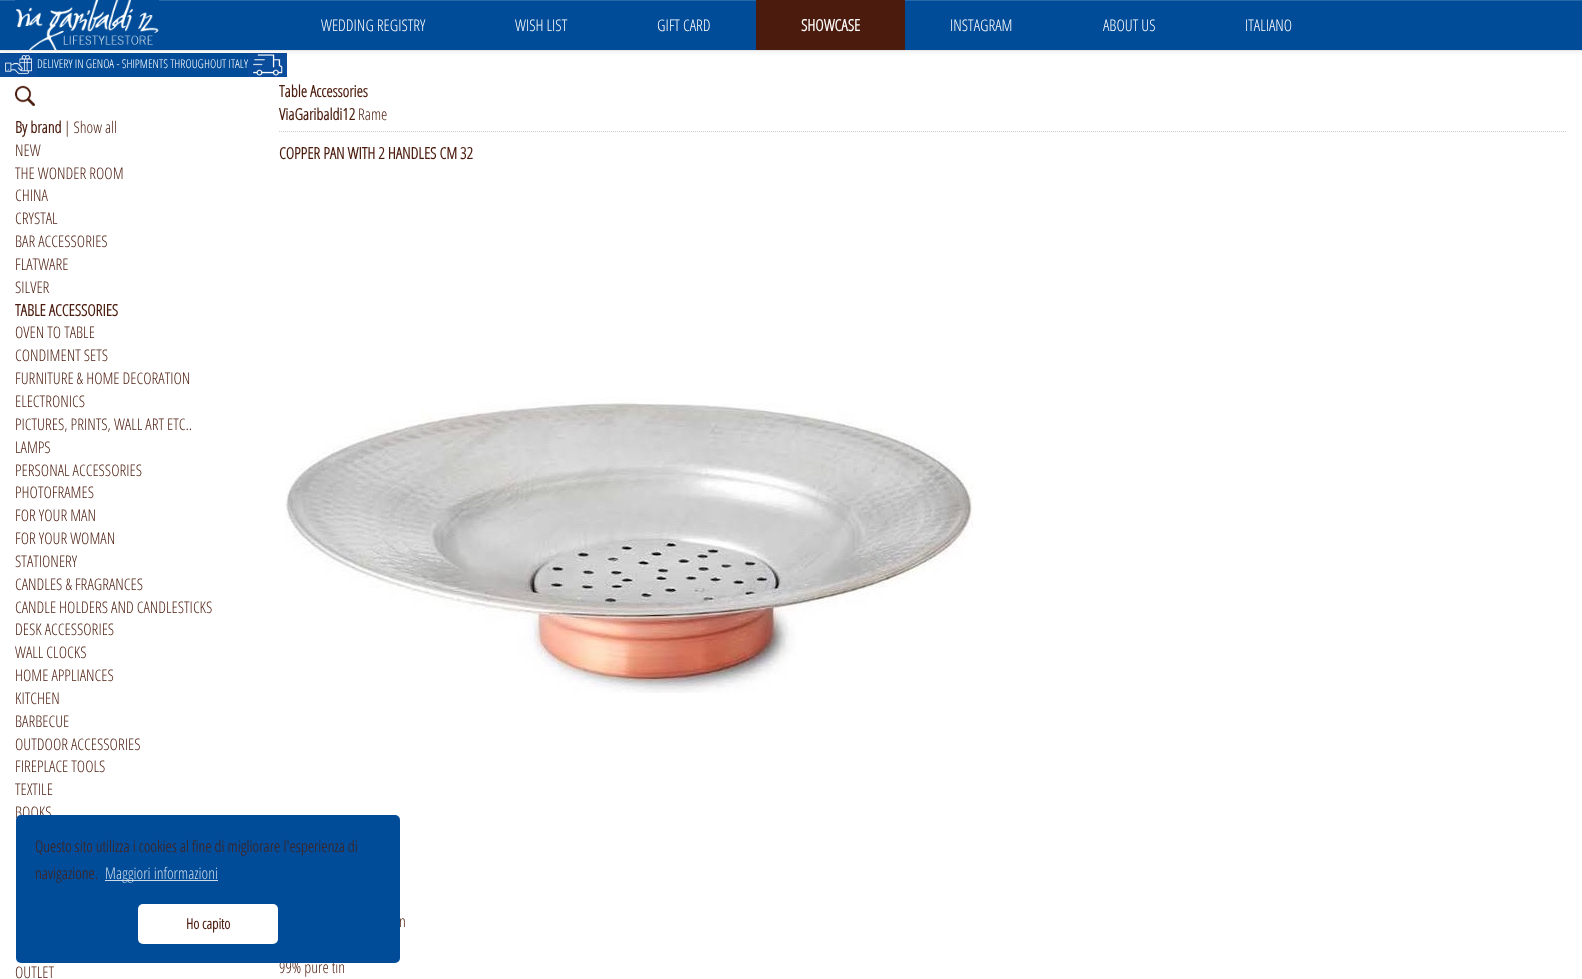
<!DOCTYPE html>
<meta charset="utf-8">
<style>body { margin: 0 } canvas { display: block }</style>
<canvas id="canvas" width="1582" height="979"></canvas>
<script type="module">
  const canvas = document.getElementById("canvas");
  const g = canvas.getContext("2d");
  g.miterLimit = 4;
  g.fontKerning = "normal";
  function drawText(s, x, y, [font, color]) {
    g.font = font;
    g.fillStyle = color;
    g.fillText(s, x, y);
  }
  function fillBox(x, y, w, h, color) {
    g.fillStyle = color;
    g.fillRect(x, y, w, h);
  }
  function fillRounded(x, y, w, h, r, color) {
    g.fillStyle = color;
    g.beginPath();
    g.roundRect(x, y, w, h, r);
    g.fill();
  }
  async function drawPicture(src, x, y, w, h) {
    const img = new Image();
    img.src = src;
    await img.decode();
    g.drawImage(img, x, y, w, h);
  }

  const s1 = ["300 12px Open Sans Condensed", "#FFFFFF"];
  const s2 = ["300 16px Open Sans Condensed", "#FFFFFF"];
  const s3 = ["bold 16px Open Sans Condensed", "#FFFFFF"];
  const s4 = ["bold 16px Open Sans Condensed", "#4B1C0D"];
  const s5 = ["300 16px Open Sans Condensed", "#4B1C0D"];
  const s6 = ["300 16px Open Sans Condensed", "#CCDBEA"];
  const s7 = ["bold 14.5px Open Sans Condensed", "#4B1C0D"];

  fillBox(0, 0, 1582, 979, "#FFFFFF");
  fillBox(37, 53, 211, 24, "#004C98");
  await drawPicture("pic2.png", 0, 53, 37, 24);
  drawText("DELIVERY IN GENOA - SHIPMENTS THROUGHOUT ITALY", 37, 68, s1);
  await drawPicture("pic3.png", 248, 53, 39, 24);
  g.fillStyle = "rgba(0, 0, 0, 0.07)";
  g.filter = "blur(2.5px)";
  g.beginPath();
  g.rect(0, 1, 1582, 51);
  g.fill();
  g.filter = "none";
  fillBox(0, 1, 1582, 49, "#004C98");
  fillBox(0, 0, 1582, 1, "#2667A7");
  fillBox(0, 50, 1582, 1, "#E7E7E7");
  await drawPicture("pic1.png", 15, 0, 144, 50);
  drawText("WEDDING REGISTRY", 321, 31, s2);
  drawText("WISH LIST", 515, 31, s2);
  drawText("GIFT CARD", 657, 31, s2);
  fillBox(756, 0, 149, 50, "#4B1C0D");
  drawText("SHOWCASE", 801, 31, s3);
  drawText("INSTAGRAM", 950, 31, s2);
  drawText("ABOUT US", 1103, 31, s2);
  drawText("ITALIANO", 1245, 31, s2);
  await drawPicture("pic4.png", 15, 85, 20, 21);
  drawText("By brand", 15, 133, s4);
  drawText("| Show all", 64, 133, s5);
  drawText("NEW", 15, 156, s5);
  drawText("THE WONDER ROOM", 15, 179, s5);
  drawText("CHINA", 15, 201, s5);
  drawText("CRYSTAL", 15, 224, s5);
  drawText("BAR ACCESSORIES", 15, 247, s5);
  drawText("FLATWARE", 15, 270, s5);
  drawText("SILVER", 15, 293, s5);
  drawText("TABLE ACCESSORIES", 15, 316, s4);
  drawText("OVEN TO TABLE", 15, 338, s5);
  drawText("CONDIMENT SETS", 15, 361, s5);
  drawText("FURNITURE & HOME DECORATION", 15, 384, s5);
  drawText("ELECTRONICS", 15, 407, s5);
  drawText("PICTURES, PRINTS, WALL ART ETC..", 15, 430, s5);
  drawText("LAMPS", 15, 453, s5);
  drawText("PERSONAL ACCESSORIES", 15, 476, s5);
  drawText("PHOTOFRAMES", 15, 498, s5);
  drawText("FOR YOUR MAN", 15, 521, s5);
  drawText("FOR YOUR WOMAN", 15, 544, s5);
  drawText("STATIONERY", 15, 567, s5);
  drawText("CANDLES & FRAGRANCES", 15, 590, s5);
  drawText("CANDLE HOLDERS AND CANDLESTICKS", 15, 613, s5);
  drawText("DESK ACCESSORIES", 15, 635, s5);
  drawText("WALL CLOCKS", 15, 658, s5);
  drawText("HOME APPLIANCES", 15, 681, s5);
  drawText("KITCHEN", 15, 704, s5);
  drawText("BARBECUE", 15, 727, s5);
  drawText("OUTDOOR ACCESSORIES", 15, 750, s5);
  drawText("FIREPLACE TOOLS", 15, 772, s5);
  drawText("TEXTILE", 15, 795, s5);
  drawText("BOOKS", 15, 818, s5);
  drawText("OUTLET", 15, 978, s5);
  g.beginPath();
  g.moveTo(279, 131.5);
  g.lineTo(1567, 131.5);
  g.strokeStyle = "#CCCCCC";
  g.setLineDash([1, 1]);
  g.stroke();
  drawText("Table Accessories", 279, 97, s4);
  drawText("ViaGaribaldi12", 279, 120, s4);
  drawText("Rame", 358, 120, s5);
  drawText("COPPER PAN WITH 2 HANDLES CM 32", 279, 159, s4);
  await drawPicture("pic5.png", 285, 397, 690, 296);
  drawText("n", 399, 927, s5);
  drawText("99% pure tin", 279, 973, s5);
  fillRounded(16, 815, 384, 148, 5, "#004C98");
  drawText("Questo sito utilizza i cookies al fine di migliorare l'esperienza di", 35, 852, s5);
  drawText("navigazione.", 35, 879, s5);
  fillBox(105, 880, 113, 1, "#CCDBEA");
  drawText("Maggiori informazioni", 105, 879, s6);
  fillRounded(138, 904, 140, 40, 5, "#FFFFFF");
  drawText("Ho capito", 186, 929, s7);
</script>
